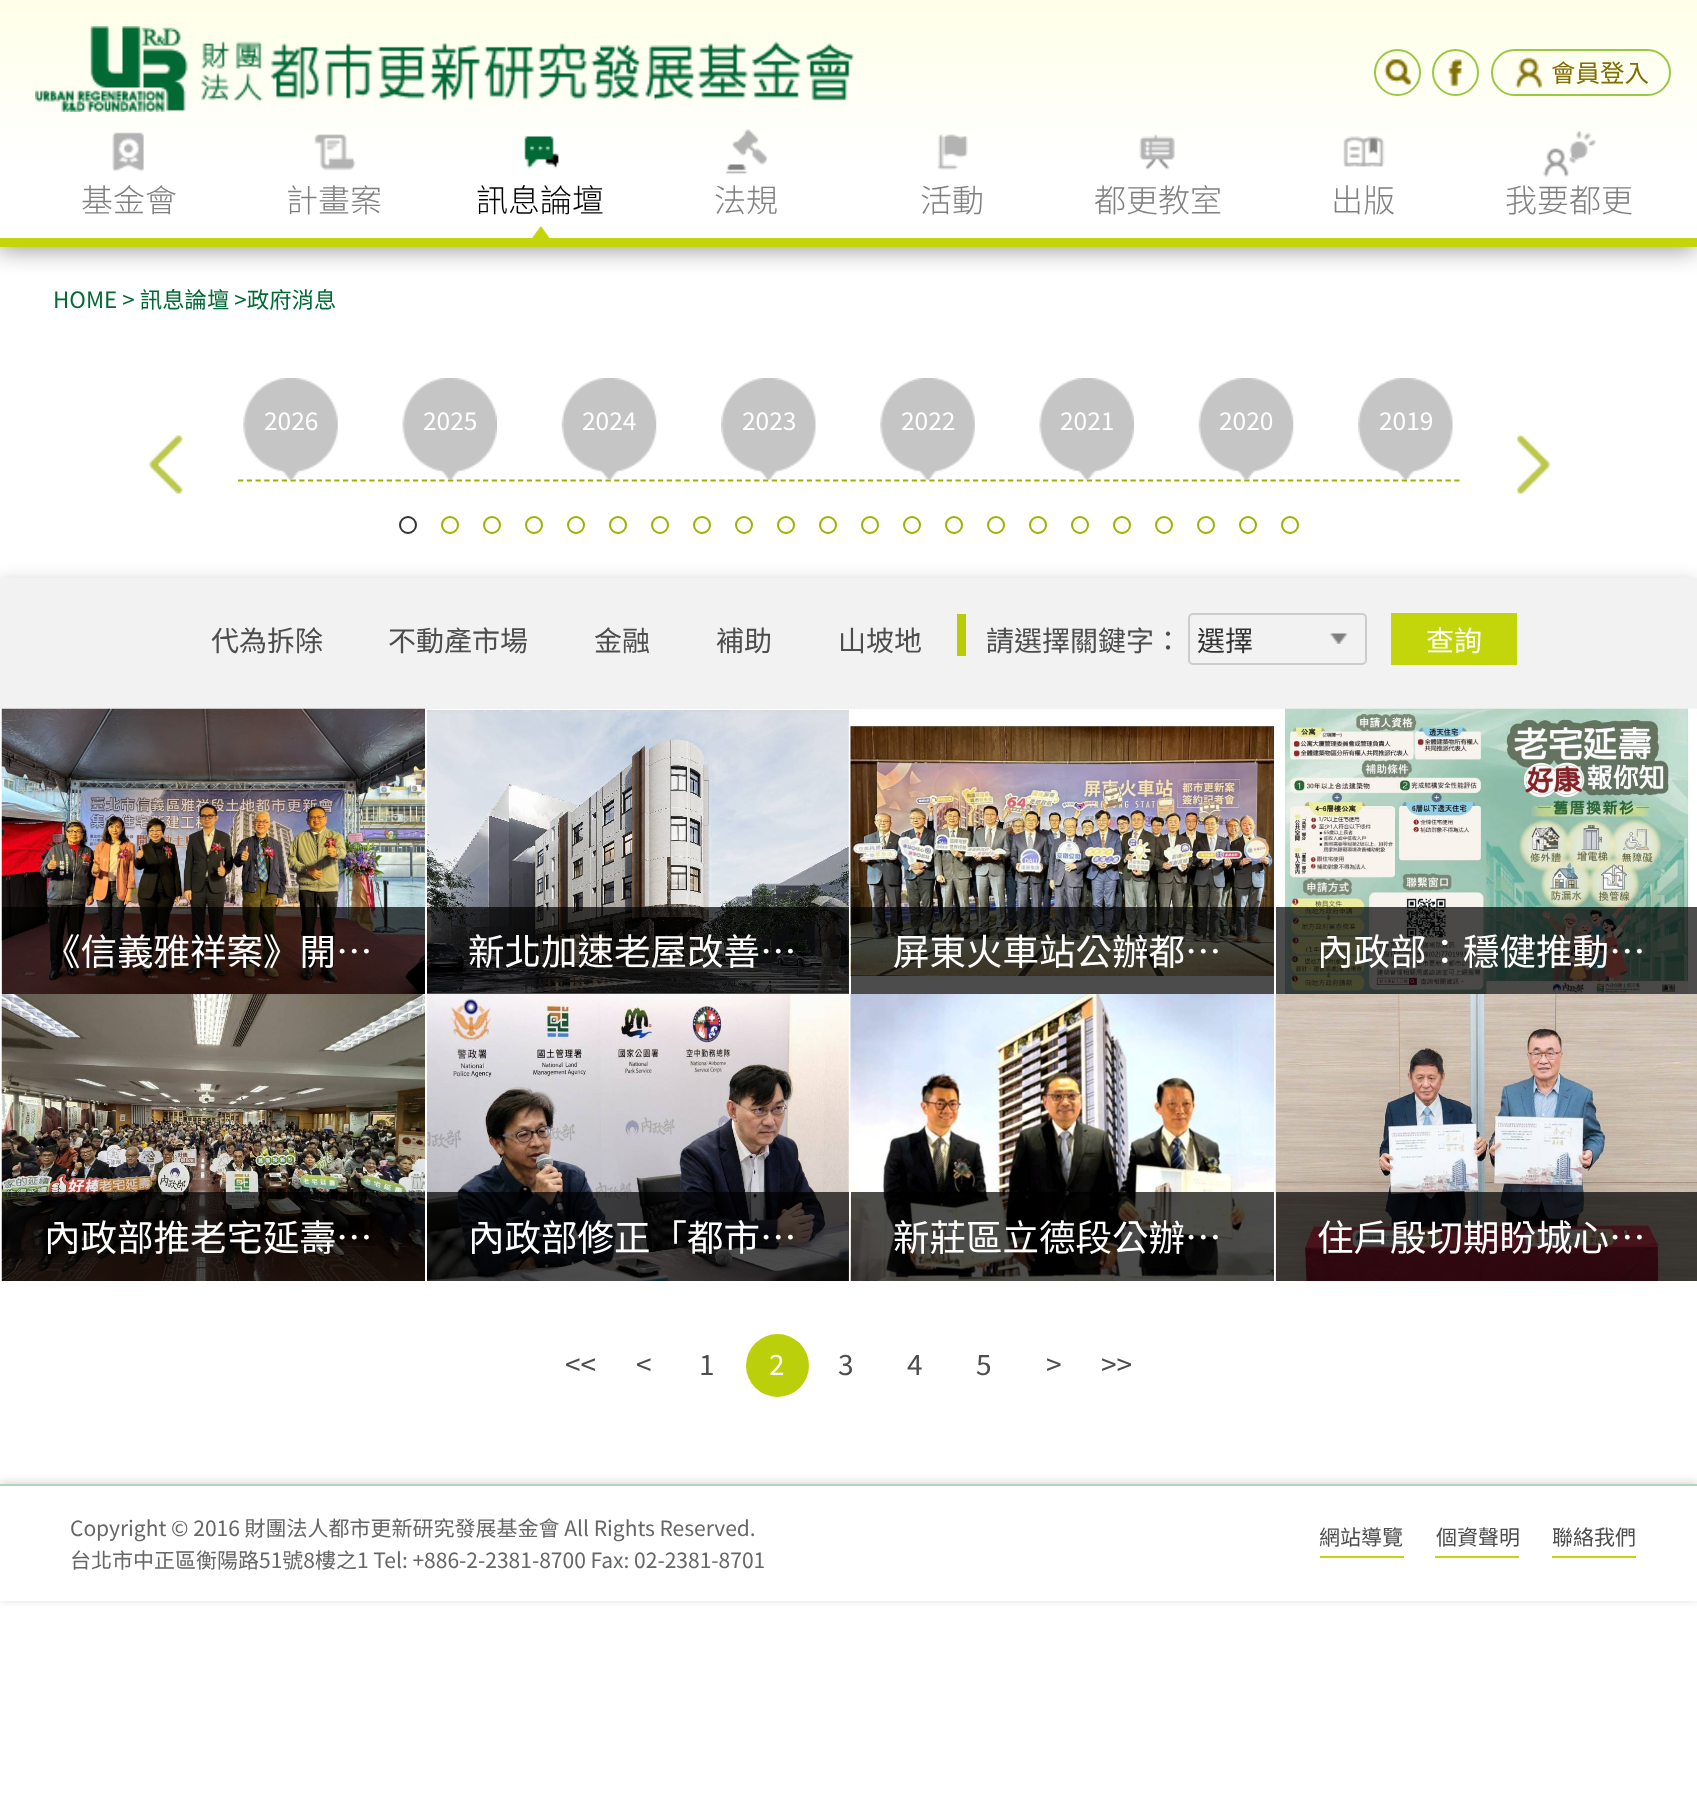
<!DOCTYPE html>
<meta charset="utf-8">
<style>body { margin: 0 } canvas { display: block }</style>
<canvas id="canvas" width="1697" height="1798"></canvas>
<script type="module">
  const canvas = document.getElementById("canvas");
  const g = canvas.getContext("2d");
  g.miterLimit = 4;
  g.fontKerning = "normal";
  function drawText(s, x, y, [font, color]) {
    g.font = font;
    g.fillStyle = color;
    g.fillText(s, x, y);
  }
  function fillBox(x, y, w, h, color) {
    g.fillStyle = color;
    g.fillRect(x, y, w, h);
  }
  async function drawPicture(src, x, y, w, h) {
    const img = new Image();
    img.src = src;
    await img.decode();
    g.drawImage(img, x, y, w, h);
  }
  let gradient;

  const s1 = ["24.5px Noto Sans TC", "#7F6E00"];
  const s2 = ["300 32px Noto Sans TC", "#808080"];
  const s3 = ["300 32px Noto Sans TC", "#000000"];
  const s4 = ["22.4px Noto Sans TC", "#006934"];
  const s5 = ["24.5px Noto Sans TC", "#FFFFFF"];
  const s6 = ["28px Noto Sans TC", "#4D4D4D"];
  const s7 = ["28px Noto Sans TC", "#333333"];
  const s8 = ["28px Noto Sans TC", "#FFFFFF"];
  const s9 = ["36.5px Noto Sans TC", "#FFFFFF"];
  const s10 = ["21px Noto Sans TC", "#666666"];
  const s11 = ["21px Noto Sans TC", "#4D4D4D"];

  fillBox(0, 0, 1697, 1798, "#FFFFFF");
  g.fillStyle = "rgba(0, 0, 0, 0.4)";
  g.filter = "blur(12px)";
  g.beginPath();
  g.rect(-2, 4, 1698, 246);
  g.fill();
  g.filter = "none";
  gradient = g.createLinearGradient(849, 0, 849, 238);
  gradient.addColorStop(0, "#FFFFE8");
  gradient.addColorStop(0.67, "#FFFFFF");
  g.fillStyle = gradient;
  g.fillRect(0, 0, 1697, 238);
  fillBox(0, 238, 1697, 9, "#C3D60B");
  await drawPicture("pic1.png", 35, 26, 819, 86);
  g.beginPath();
  g.arc(1397.5, 72.5, 22.5, 0, Math.PI * 2);
  g.strokeStyle = "#98C940";
  g.lineWidth = 2;
  g.stroke();
  await drawPicture("pic2.png", 1384, 59, 28, 27);
  g.beginPath();
  g.arc(1455.5, 72.5, 22.5, 0, Math.PI * 2);
  g.stroke();
  await drawPicture("pic3.png", 1448, 59, 14, 28);
  g.beginPath();
  g.roundRect(1492, 50, 178, 45, 22.5);
  g.stroke();
  await drawPicture("pic4.png", 1515, 57, 28, 31);
  drawText("會員登入", 1551, 82, s1);
  await drawPicture("pic5.png", 112, 132, 32, 40);
  drawText("基金會", 81, 212, s2);
  await drawPicture("pic6.png", 314, 134, 42, 37);
  drawText("計畫案", 286, 212, s2);
  await drawPicture("pic7.png", 524, 136, 35, 33);
  drawText("訊息論壇", 476, 212, s3);
  g.fillStyle = "#C3D60B";
  g.beginPath();
  g.moveTo(549.5, 238);
  g.lineTo(532, 238);
  g.lineTo(541, 226);
  g.closePath();
  g.fill();
  await drawPicture("pic8.png", 726, 129, 42, 45);
  drawText("法規", 714, 212, s2);
  await drawPicture("pic9.png", 937, 134, 31, 36);
  drawText("活動", 920, 212, s2);
  await drawPicture("pic10.png", 1139, 134, 36, 36);
  drawText("都更教室", 1094, 212, s2);
  await drawPicture("pic11.png", 1343, 136, 42, 31);
  drawText("出版", 1331, 212, s2);
  await drawPicture("pic12.png", 1543, 131, 53, 46);
  drawText("我要都更", 1505, 212, s2);
  drawText("HOME > 訊息論壇 >政府消息", 53, 308, s4);
  g.beginPath();
  g.moveTo(238, 480.5);
  g.lineTo(1459.5, 480.5);
  g.strokeStyle = "#9FB100";
  g.lineWidth = 1.8;
  g.setLineDash([5.25, 3.5]);
  g.stroke();
  await drawPicture("pic13.png", 243, 378, 95, 102);
  drawText("2026", 264, 430, s5);
  await drawPicture("pic14.png", 402, 378, 95, 102);
  drawText("2025", 423, 430, s5);
  await drawPicture("pic15.png", 561, 378, 96, 102);
  drawText("2024", 582, 430, s5);
  await drawPicture("pic16.png", 721, 378, 95, 102);
  drawText("2023", 742, 430, s5);
  await drawPicture("pic17.png", 880, 378, 95, 102);
  drawText("2022", 901, 430, s5);
  await drawPicture("pic18.png", 1039, 378, 95, 102);
  drawText("2021", 1060, 430, s5);
  await drawPicture("pic19.png", 1198, 378, 96, 102);
  drawText("2020", 1219, 430, s5);
  await drawPicture("pic20.png", 1358, 378, 95, 102);
  drawText("2019", 1379, 430, s5);
  await drawPicture("pic21.png", 149, 435, 34, 59);
  await drawPicture("pic22.png", 1517, 435, 34, 59);
  g.beginPath();
  g.arc(408, 525, 8, 0, Math.PI * 2);
  g.strokeStyle = "#333333";
  g.lineWidth = 2;
  g.setLineDash([]);
  g.stroke();
  g.beginPath();
  g.arc(450, 525, 8, 0, Math.PI * 2);
  g.strokeStyle = "#9FB100";
  g.stroke();
  g.beginPath();
  g.arc(492, 525, 8, 0, Math.PI * 2);
  g.stroke();
  g.beginPath();
  g.arc(534, 525, 8, 0, Math.PI * 2);
  g.stroke();
  g.beginPath();
  g.arc(576, 525, 8, 0, Math.PI * 2);
  g.stroke();
  g.beginPath();
  g.arc(618, 525, 8, 0, Math.PI * 2);
  g.stroke();
  g.beginPath();
  g.arc(660, 525, 8, 0, Math.PI * 2);
  g.stroke();
  g.beginPath();
  g.arc(702, 525, 8, 0, Math.PI * 2);
  g.stroke();
  g.beginPath();
  g.arc(744, 525, 8, 0, Math.PI * 2);
  g.stroke();
  g.beginPath();
  g.arc(786, 525, 8, 0, Math.PI * 2);
  g.stroke();
  g.beginPath();
  g.arc(828, 525, 8, 0, Math.PI * 2);
  g.stroke();
  g.beginPath();
  g.arc(870, 525, 8, 0, Math.PI * 2);
  g.stroke();
  g.beginPath();
  g.arc(912, 525, 8, 0, Math.PI * 2);
  g.stroke();
  g.beginPath();
  g.arc(954, 525, 8, 0, Math.PI * 2);
  g.stroke();
  g.beginPath();
  g.arc(996, 525, 8, 0, Math.PI * 2);
  g.stroke();
  g.beginPath();
  g.arc(1038, 525, 8, 0, Math.PI * 2);
  g.stroke();
  g.beginPath();
  g.arc(1080, 525, 8, 0, Math.PI * 2);
  g.stroke();
  g.beginPath();
  g.arc(1122, 525, 8, 0, Math.PI * 2);
  g.stroke();
  g.beginPath();
  g.arc(1164, 525, 8, 0, Math.PI * 2);
  g.stroke();
  g.beginPath();
  g.arc(1206, 525, 8, 0, Math.PI * 2);
  g.stroke();
  g.beginPath();
  g.arc(1248, 525, 8, 0, Math.PI * 2);
  g.stroke();
  g.beginPath();
  g.arc(1290, 525, 8, 0, Math.PI * 2);
  g.stroke();
  g.fillStyle = "rgba(0, 0, 0, 0.2)";
  g.filter = "blur(9px)";
  g.beginPath();
  g.rect(-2, 581, 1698, 131);
  g.fill();
  g.filter = "none";
  fillBox(0, 578, 1697, 131, "#F2F2F2");
  drawText("代為拆除", 211, 651, s6);
  drawText("不動產市場", 388, 651, s6);
  drawText("金融", 594, 651, s6);
  drawText("補助", 716, 651, s6);
  drawText("山坡地", 838, 651, s6);
  fillBox(957, 614, 9, 42, "#B9CC06");
  drawText("請選擇關鍵字：", 986, 651, s6);
  await drawPicture("pic23.png", 1330, 633, 18, 11);
  g.beginPath();
  g.roundRect(1189, 614, 177, 50, 4);
  g.strokeStyle = "#CCCCCC";
  g.stroke();
  drawText("選擇", 1197, 651, s7);
  fillBox(1391, 613, 126, 52, "#C3D60B");
  drawText("查詢", 1426, 651, s8);
  fillBox(0, 709, 2, 16, "#FFFFFF");
  await drawPicture("pic24.png", 1, 708, 425, 286);
  fillBox(2, 907, 423, 87, "rgba(0, 0, 0, 0.7)");
  drawText("《信義雅祥案》開…", 44, 965, s9);
  fillBox(425, 709, 2, 285, "#FFFFFF");
  await drawPicture("pic25.png", 427, 709, 422, 285);
  fillBox(427, 907, 422, 87, "rgba(0, 0, 0, 0.7)");
  drawText("新北加速老屋改善…", 468, 965, s9);
  fillBox(849, 709, 2, 18, "#FFFFFF");
  await drawPicture("pic26.png", 850, 709, 424, 273);
  fillBox(851, 907, 423, 87, "rgba(0, 0, 0, 0.7)");
  drawText("屏東火車站公辦都…", 893, 965, s9);
  fillBox(1274, 709, 2, 18, "#FFFFFF");
  await drawPicture("pic27.png", 1276, 708, 421, 286);
  fillBox(1276, 907, 421, 87, "rgba(0, 0, 0, 0.7)");
  drawText("內政部：穩健推動…", 1317, 965, s9);
  await drawPicture("pic28.png", 1, 994, 424, 287);
  fillBox(2, 1192, 423, 89, "rgba(0, 0, 0, 0.7)");
  drawText("內政部推老宅延壽…", 44, 1251, s9);
  await drawPicture("pic29.png", 427, 994, 422, 287);
  fillBox(427, 1192, 422, 89, "rgba(0, 0, 0, 0.7)");
  drawText("內政部修正「都市…", 468, 1251, s9);
  await drawPicture("pic30.png", 850, 994, 424, 287);
  fillBox(851, 1192, 423, 89, "rgba(0, 0, 0, 0.7)");
  drawText("新莊區立德段公辦…", 893, 1251, s9);
  await drawPicture("pic31.png", 1275, 994, 422, 287);
  fillBox(1276, 1192, 421, 89, "rgba(0, 0, 0, 0.7)");
  drawText("住戶殷切期盼城心…", 1317, 1251, s9);
  drawText("<<", 565, 1375, s6);
  drawText("<", 636, 1375, s6);
  drawText("1", 699, 1375, s6);
  g.fillStyle = "#BCCF0B";
  g.beginPath();
  g.arc(777.5, 1365.5, 31.5, 0, Math.PI * 2);
  g.fill();
  drawText("2", 769, 1375, s8);
  drawText("3", 838, 1375, s6);
  drawText("4", 907, 1375, s6);
  drawText("5", 976, 1375, s6);
  drawText(">", 1046, 1375, s6);
  drawText(">>", 1101, 1375, s6);
  g.save();
  g.beginPath();
  g.moveTo(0, 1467);
  g.lineTo(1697, 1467);
  g.lineTo(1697, 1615);
  g.lineTo(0, 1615);
  g.closePath();
  g.moveTo(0, 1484);
  g.lineTo(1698, 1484);
  g.lineTo(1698, 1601);
  g.lineTo(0, 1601);
  g.closePath();
  g.clip("evenodd");
  g.fillStyle = "rgba(0, 0, 0, 0.15)";
  g.filter = "blur(4.5px)";
  g.beginPath();
  g.rect(0, 1482, 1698, 118);
  g.fill();
  g.filter = "none";
  g.restore();
  fillBox(0, 1484, 1697, 2, "#B3D2C2");
  drawText("Copyright © 2016 財團法人都市更新研究發展基金會 All Rights Reserved.", 70, 1536, s10);
  drawText("台北市中正區衡陽路51號8樓之1 Tel: +886-2-2381-8700 Fax: 02-2381-8701", 70, 1568, s10);
  drawText("網站導覽", 1319, 1545, s11);
  fillBox(1320, 1556, 84, 2, "#C3D60B");
  drawText("個資聲明", 1436, 1545, s11);
  fillBox(1435, 1556, 84, 2, "#C3D60B");
  drawText("聯絡我們", 1552, 1545, s11);
  fillBox(1552, 1556, 84, 2, "#C3D60B");
</script>
